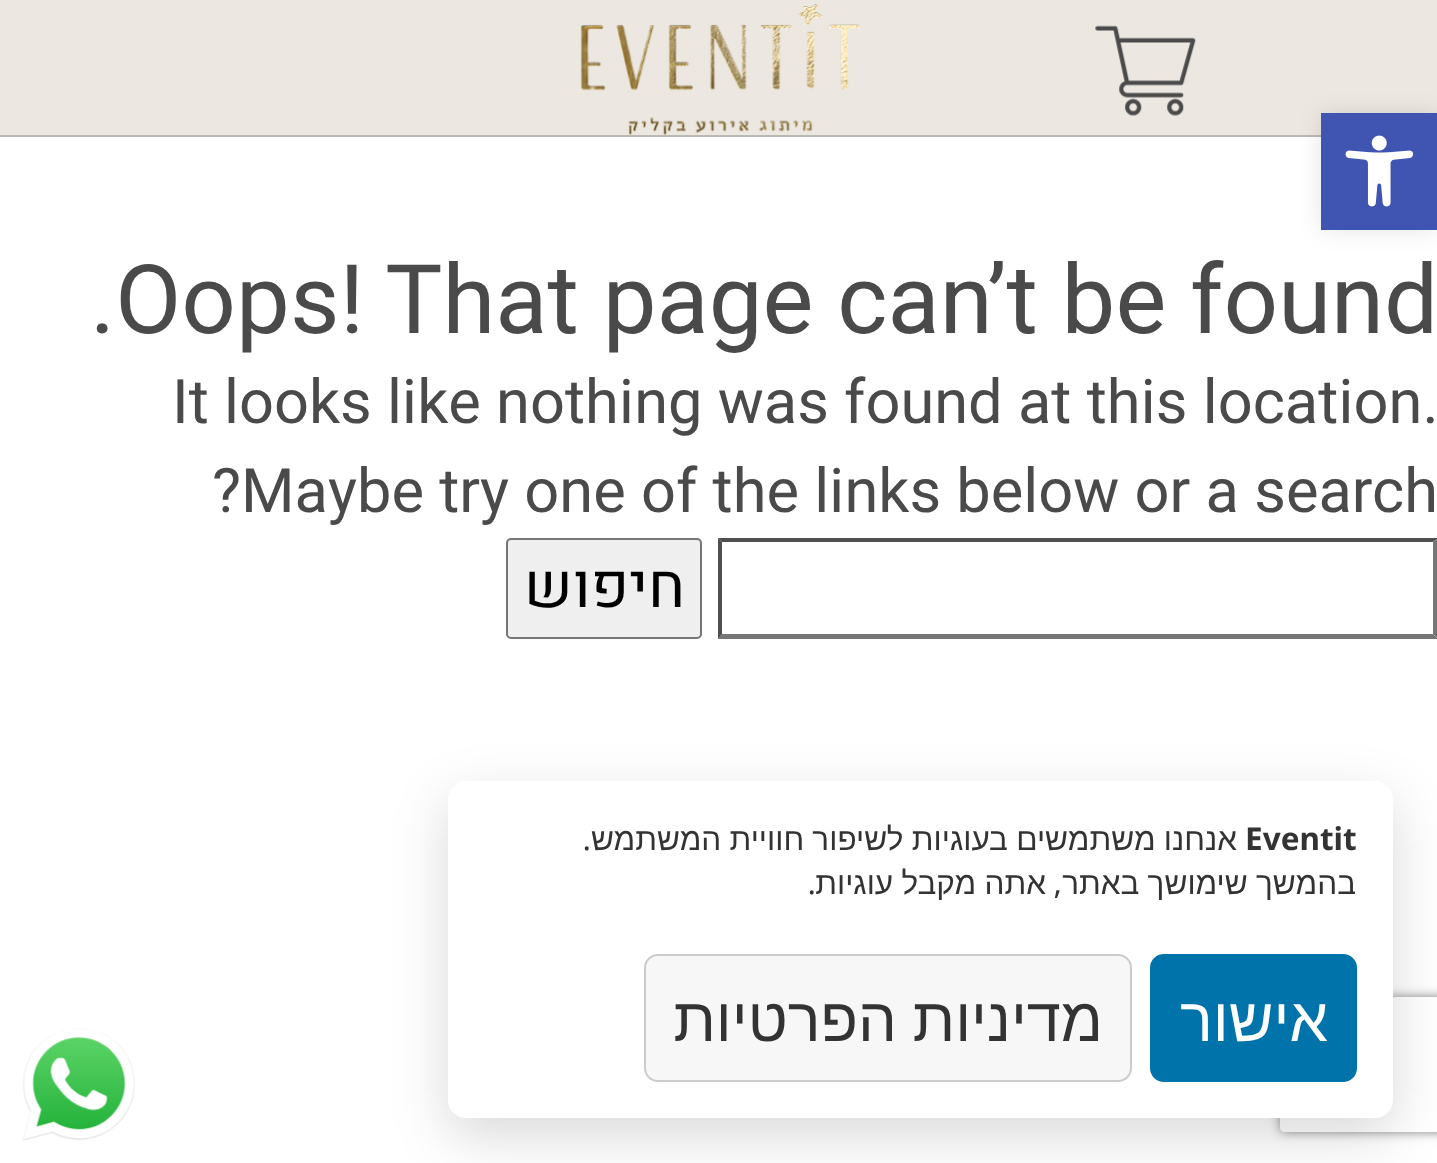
<!DOCTYPE html>
<meta charset="utf-8">
<style>body { margin: 0 } canvas { display: block }</style>
<canvas id="canvas" width="1437" height="1163"></canvas>
<script type="module">
  const canvas = document.getElementById("canvas");
  const g = canvas.getContext("2d");
  g.miterLimit = 4;
  g.fontKerning = "normal";
  function drawText(s, x, y, [font, color]) {
    g.font = font;
    g.fillStyle = color;
    g.fillText(s, x, y);
  }
  function fillBox(x, y, w, h, color) {
    g.fillStyle = color;
    g.fillRect(x, y, w, h);
  }
  function fillRounded(x, y, w, h, r, color) {
    g.fillStyle = color;
    g.beginPath();
    g.roundRect(x, y, w, h, r);
    g.fill();
  }
  async function drawPicture(src, x, y, w, h) {
    const img = new Image();
    img.src = src;
    await img.decode();
    g.drawImage(img, x, y, w, h);
  }

  const s1 = ["95.9px Heebo", "#4A4A4A"];
  const s2 = ["61.35px Heebo", "#4A4A4A"];
  const s3 = ["61.35px Heebo", "#000000"];
  const s4 = ["31.5px Noto Sans", "#333333"];
  const s5 = ["31.5px Liberation Sans", "#333333"];
  const s6 = ["bold 31.5px Noto Sans", "#333333"];
  const s7 = ["61.35px Liberation Sans", "#333333"];
  const s8 = ["61.35px Liberation Sans", "#FFFFFF"];

  fillBox(0, 0, 1437, 1163, "#FFFFFF");
  fillBox(0, 0, 1437, 135, "#ECE7E0");
  fillBox(0, 135, 1321, 2, "#BAB9B4");
  await drawPicture("pic1.png", 580, 4, 280, 131);
  await drawPicture("pic2.png", 1095, 25, 101, 91);
  g.fillStyle = "rgba(0, 0, 0, 0.1)";
  g.filter = "blur(11px)";
  g.beginPath();
  g.rect(1321, 113, 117, 117);
  g.fill();
  g.filter = "none";
  fillBox(1321, 113, 116, 117, "#4054B2");
  await drawPicture("pic3.png", 1345, 135, 69, 72);
  drawText(".Oops! That page can’t be found", 90, 333, s1);
  drawText("It looks like nothing was found at this location.", 172, 423, s2);
  drawText("?Maybe try one of the links below or a search", 212, 512, s2);
  g.fillStyle = "#EFEFEF";
  g.beginPath();
  g.roundRect(507, 539, 194, 99, 4);
  g.fill();
  g.strokeStyle = "#767676";
  g.lineWidth = 2;
  g.stroke();
  g.direction = "rtl";
  drawText("חיפוש", 685, 607, s3);
  g.fillStyle = "#4F4F4F";
  g.beginPath();
  g.moveTo(718, 538);
  g.lineTo(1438, 538);
  g.lineTo(1433, 542);
  g.lineTo(722, 542);
  g.closePath();
  g.fill();
  g.fillStyle = "#767676";
  g.beginPath();
  g.moveTo(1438, 538);
  g.lineTo(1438, 639);
  g.lineTo(1433, 634);
  g.lineTo(1433, 542);
  g.closePath();
  g.fill();
  g.beginPath();
  g.moveTo(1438, 639);
  g.lineTo(718, 639);
  g.lineTo(722, 634);
  g.lineTo(1433, 634);
  g.closePath();
  g.fill();
  g.fillStyle = "#4F4F4F";
  g.beginPath();
  g.moveTo(718, 639);
  g.lineTo(718, 538);
  g.lineTo(722, 542);
  g.lineTo(722, 634);
  g.closePath();
  g.fill();
  g.fillStyle = "rgba(0, 0, 0, 0.15)";
  g.filter = "blur(27px)";
  g.beginPath();
  g.roundRect(448, 799, 945, 337, 18);
  g.fill();
  g.filter = "none";
  g.save();
  g.beginPath();
  g.moveTo(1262, 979);
  g.lineTo(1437, 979);
  g.lineTo(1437, 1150);
  g.lineTo(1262, 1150);
  g.closePath();
  g.moveTo(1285, 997);
  g.lineTo(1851, 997);
  g.bezierCurveTo(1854, 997, 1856, 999, 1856, 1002);
  g.lineTo(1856, 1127);
  g.bezierCurveTo(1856, 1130, 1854, 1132, 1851, 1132);
  g.lineTo(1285, 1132);
  g.bezierCurveTo(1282, 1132, 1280, 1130, 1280, 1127);
  g.lineTo(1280, 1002);
  g.bezierCurveTo(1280, 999, 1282, 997, 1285, 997);
  g.closePath();
  g.clip("evenodd");
  g.fillStyle = "#808080";
  g.filter = "blur(5.5px)";
  g.beginPath();
  g.roundRect(1280, 997, 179, 135, 5);
  g.fill();
  g.filter = "none";
  g.restore();
  fillRounded(448, 781, 945, 337, 18, "#FFFFFF");
  drawText(".", 591, 850, s4);
  g.wordSpacing = "-0.5px";
  drawText("אנחנו משתמשים בעוגיות לשיפור חוויית המשתמש", 1237, 850, s5);
  g.wordSpacing = "0px";
  g.direction = "ltr";
  drawText("Eventit", 1245, 850, s6);
  g.direction = "rtl";
  drawText(".", 816, 894, s4);
  g.wordSpacing = "-0.5px";
  drawText("אתה מקבל עוגיות", 1046, 894, s5);
  g.wordSpacing = "0px";
  drawText(",", 1062, 894, s4);
  g.wordSpacing = "-0.5px";
  drawText("בהמשך שימושך באתר", 1356, 894, s5);
  g.fillStyle = "#F7F7F7";
  g.beginPath();
  g.roundRect(645, 955, 486, 126, 13);
  g.fill();
  g.strokeStyle = "#CCCCCC";
  g.stroke();
  g.wordSpacing = "-1px";
  drawText("מדיניות הפרטיות", 1103, 1041, s7);
  g.fillStyle = "#0073AA";
  g.beginPath();
  g.roundRect(1151, 955, 205, 126, 13);
  g.fill();
  g.strokeStyle = "#0073AA";
  g.stroke();
  g.wordSpacing = "0px";
  drawText("אישור", 1328, 1041, s8);
  await drawPicture("pic4.png", 22, 1028, 113, 113);
</script>
